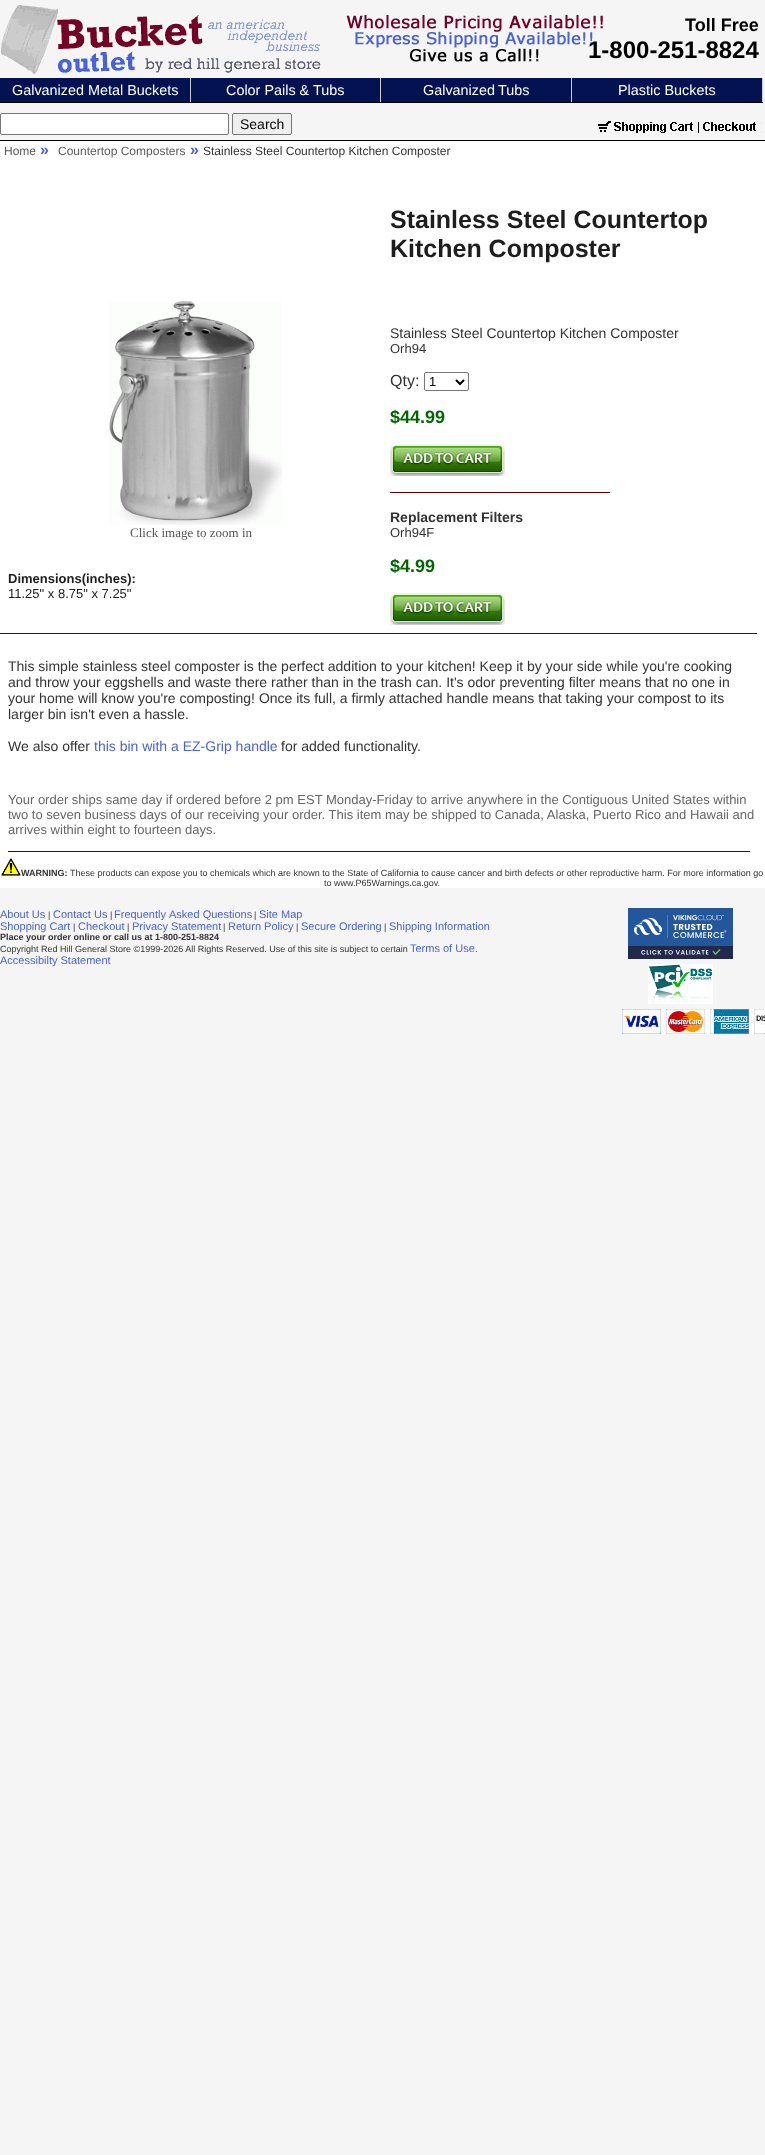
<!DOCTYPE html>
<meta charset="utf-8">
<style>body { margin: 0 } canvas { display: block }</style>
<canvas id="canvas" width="765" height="2155"></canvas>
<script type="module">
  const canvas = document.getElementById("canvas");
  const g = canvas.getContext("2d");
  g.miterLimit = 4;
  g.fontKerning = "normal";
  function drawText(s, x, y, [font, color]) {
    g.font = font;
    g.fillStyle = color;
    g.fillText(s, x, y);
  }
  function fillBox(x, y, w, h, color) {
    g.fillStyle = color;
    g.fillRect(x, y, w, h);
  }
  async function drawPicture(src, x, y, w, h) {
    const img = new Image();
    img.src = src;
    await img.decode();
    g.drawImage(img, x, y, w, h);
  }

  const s1 = ["bold 18px Liberation Sans", "#000000"];
  const s2 = ["bold 24px Liberation Sans", "#000000"];
  const s3 = ["14.4px Liberation Sans", "#FFFFFF"];
  const s4 = ["14px Liberation Sans", "#000000"];
  const s5 = ["12px Liberation Sans", "#5B5B5B"];
  const s6 = ["bold 16px Liberation Sans", "#4962D7"];
  const s7 = ["12px Liberation Sans", "#333333"];
  const s8 = ["bold 25px Liberation Sans", "#1D1D1D"];
  const s9 = ["13px Liberation Serif", "#545454"];
  const s10 = ["bold 13px Liberation Sans", "#1D1D1D"];
  const s11 = ["13px Liberation Sans", "#1D1D1D"];
  const s12 = ["14px Liberation Sans", "#333333"];
  const s13 = ["13px Liberation Sans", "#333333"];
  const s14 = ["16px Liberation Sans", "#333333"];
  const s15 = ["13px Liberation Sans", "#000000"];
  const s16 = ["bold 18px Liberation Sans", "#006600"];
  const s17 = ["bold 14px Liberation Sans", "#333333"];
  const s18 = ["14px Liberation Sans", "#4962D7"];
  const s19 = ["13px Liberation Sans", "#666666"];
  const s20 = ["bold 9px Liberation Sans", "#333333"];
  const s21 = ["9px Liberation Sans", "#333333"];
  const s22 = ["11px Liberation Sans", "#4962D7"];

  fillBox(0, 0, 765, 2155, "#F5F5F5");
  fillBox(0, 181, 765, 707, "#FFFFFF");
  await drawPicture("pic1.png", 1, 5, 320, 69);
  await drawPicture("pic2.png", 346, 15, 257, 47);
  drawText("Toll Free", 685, 31, s1);
  drawText("1-800-251-8824", 588, 58, s2);
  fillBox(0, 78, 190, 24, "#041251");
  fillBox(190, 78, 1, 25, "#CCCCCC");
  fillBox(0, 102, 191, 1, "#000000");
  drawText("Galvanized Metal Buckets", 12, 95, s3);
  fillBox(191, 78, 189, 24, "#041251");
  fillBox(380, 78, 1, 25, "#CCCCCC");
  fillBox(191, 102, 190, 1, "#000000");
  drawText("Color Pails & Tubs", 226, 95, s3);
  fillBox(381, 78, 190, 24, "#041251");
  fillBox(571, 78, 1, 25, "#CCCCCC");
  fillBox(381, 102, 191, 1, "#000000");
  drawText("Galvanized", 423, 95, s3);
  drawText("Tubs", 498, 95, s3);
  fillBox(572, 78, 190, 24, "#041251");
  fillBox(762, 78, 1, 25, "#CCCCCC");
  fillBox(572, 102, 191, 1, "#000000");
  drawText("Plastic Buckets", 618, 95, s3);
  fillBox(0, 140, 765, 1, "#000000");
  g.fillStyle = "#FFFFFF";
  g.beginPath();
  g.roundRect(0.5, 113.5, 228, 21, 1.5);
  g.fill();
  g.strokeStyle = "#767676";
  g.stroke();
  g.fillStyle = "#EFEFEF";
  g.beginPath();
  g.roundRect(232.5, 113.5, 59, 21, 1.5);
  g.fill();
  g.stroke();
  drawText("Search", 240, 129, s4);
  await drawPicture("pic3.png", 598, 121, 164, 12);
  fillBox(0, 141, 765, 40, "#FFFFFF");
  drawText("Home", 4, 155, s5);
  drawText("»", 40, 155, s6);
  drawText("Countertop Composters", 58, 155, s5);
  drawText("»", 190, 155, s6);
  drawText("Stainless Steel Countertop Kitchen Composter", 203, 155, s7);
  drawText("Stainless Steel Countertop", 390, 228, s8);
  drawText("Kitchen Composter", 390, 257, s8);
  await drawPicture("pic4.png", 109, 301, 173, 224);
  drawText("Click image to zoom in", 130, 537, s9);
  drawText("Dimensions(inches):", 8, 583, s10);
  drawText("11.25\" x 8.75\" x 7.25\"", 8, 598, s11);
  drawText("Stainless Steel Countertop Kitchen Composter", 390, 338, s12);
  drawText("Orh94", 390, 353, s13);
  drawText("Qty:", 390, 386, s14);
  g.beginPath();
  g.roundRect(424.5, 372.5, 44, 18, 1.5);
  g.stroke();
  g.beginPath();
  g.moveTo(456, 380);
  g.lineTo(460, 384);
  g.lineTo(464, 380);
  g.strokeStyle = "#000000";
  g.lineWidth = 2;
  g.stroke();
  drawText("1", 429, 386, s15);
  drawText("$44.99", 390, 423, s16);
  await drawPicture("pic5.png", 390, 444, 115, 32);
  fillBox(390, 492, 220, 1, "#660000");
  drawText("Replacement Filters", 390, 522, s17);
  drawText("Orh94F", 390, 537, s13);
  drawText("$4.99", 390, 572, s16);
  await drawPicture("pic5.png", 390, 593, 115, 32);
  fillBox(0, 633, 757, 1, "#660000");
  drawText("This simple stainless steel composter is the perfect addition to your kitchen! Keep it by your side while you're cooking", 8, 671, s12);
  drawText("and throw your eggshells and waste there rather than in the trash can. It's odor preventing filter means that no one in", 8, 687, s12);
  drawText("your home will know you're composting! Once its full, a firmly attached handle means that taking your compost to its", 8, 703, s12);
  drawText("larger bin isn't even a hassle.", 8, 719, s12);
  drawText("We also offer", 8, 751, s12);
  drawText("this bin with a EZ-Grip handle", 94, 751, s18);
  drawText("for added functionality.", 281, 751, s12);
  drawText("Your order ships same day if ordered before 2 pm EST Monday-Friday to arrive anywhere in the Contiguous United States within", 8, 804, s19);
  drawText("two to seven business days of our receiving your order. This item may be shipped to Canada, Alaska, Puerto Rico and Hawaii and", 8, 819, s19);
  drawText("arrives within eight to fourteen days.", 8, 834, s19);
  fillBox(8, 851, 742, 1, "#660000");
  await drawPicture("pic6.png", 1, 858, 20, 18);
  drawText("WARNING:", 21, 876, s20);
  drawText("These products can expose you to chemicals which are known to the State of California to cause cancer and birth defects or other reproductive harm. For more information go", 70, 876, s21);
  drawText("to www.P65Warnings.ca.gov.", 324, 886, s21);
  drawText("About Us", 0, 918, s22);
  drawText("|", 48, 918, s21);
  drawText("Contact Us", 53, 918, s22);
  drawText("|", 110, 918, s21);
  drawText("Frequently", 114, 918, s22);
  drawText("Asked Questions", 169, 918, s22);
  drawText("|", 254, 918, s21);
  drawText("Site Map", 259, 918, s22);
  drawText("Shopping Cart", 0, 930, s22);
  drawText("|", 73, 930, s21);
  drawText("Checkout", 78, 930, s22);
  drawText("|", 127, 930, s21);
  drawText("Privacy Statement", 132, 930, s22);
  fillBox(135, 920, 74, 1, "#F5F5F5");
  drawText("|", 223, 930, s21);
  drawText("Return Policy", 228, 930, s22);
  drawText("|", 296, 930, s21);
  drawText("Secure Ordering", 301, 930, s22);
  drawText("|", 384, 930, s21);
  drawText("Shipping Information", 389, 930, s22);
  drawText("Place your order online or call us at 1-800-251-8824", 0, 940, s20);
  drawText("Copyright Red Hill General Store ©1999-2026 All Rights Reserved. Use of this site is subject to certain", 0, 952, s21);
  drawText("Terms of Use", 410, 952, s22);
  drawText(".", 475, 952, s21);
  drawText("Accessibilty Statement", 0, 964, s22);
  await drawPicture("pic7.png", 628, 908, 105, 51);
  await drawPicture("pic8.png", 648, 964, 65, 40);
  await drawPicture("pic9.png", 622, 1009, 143, 25);
</script>
